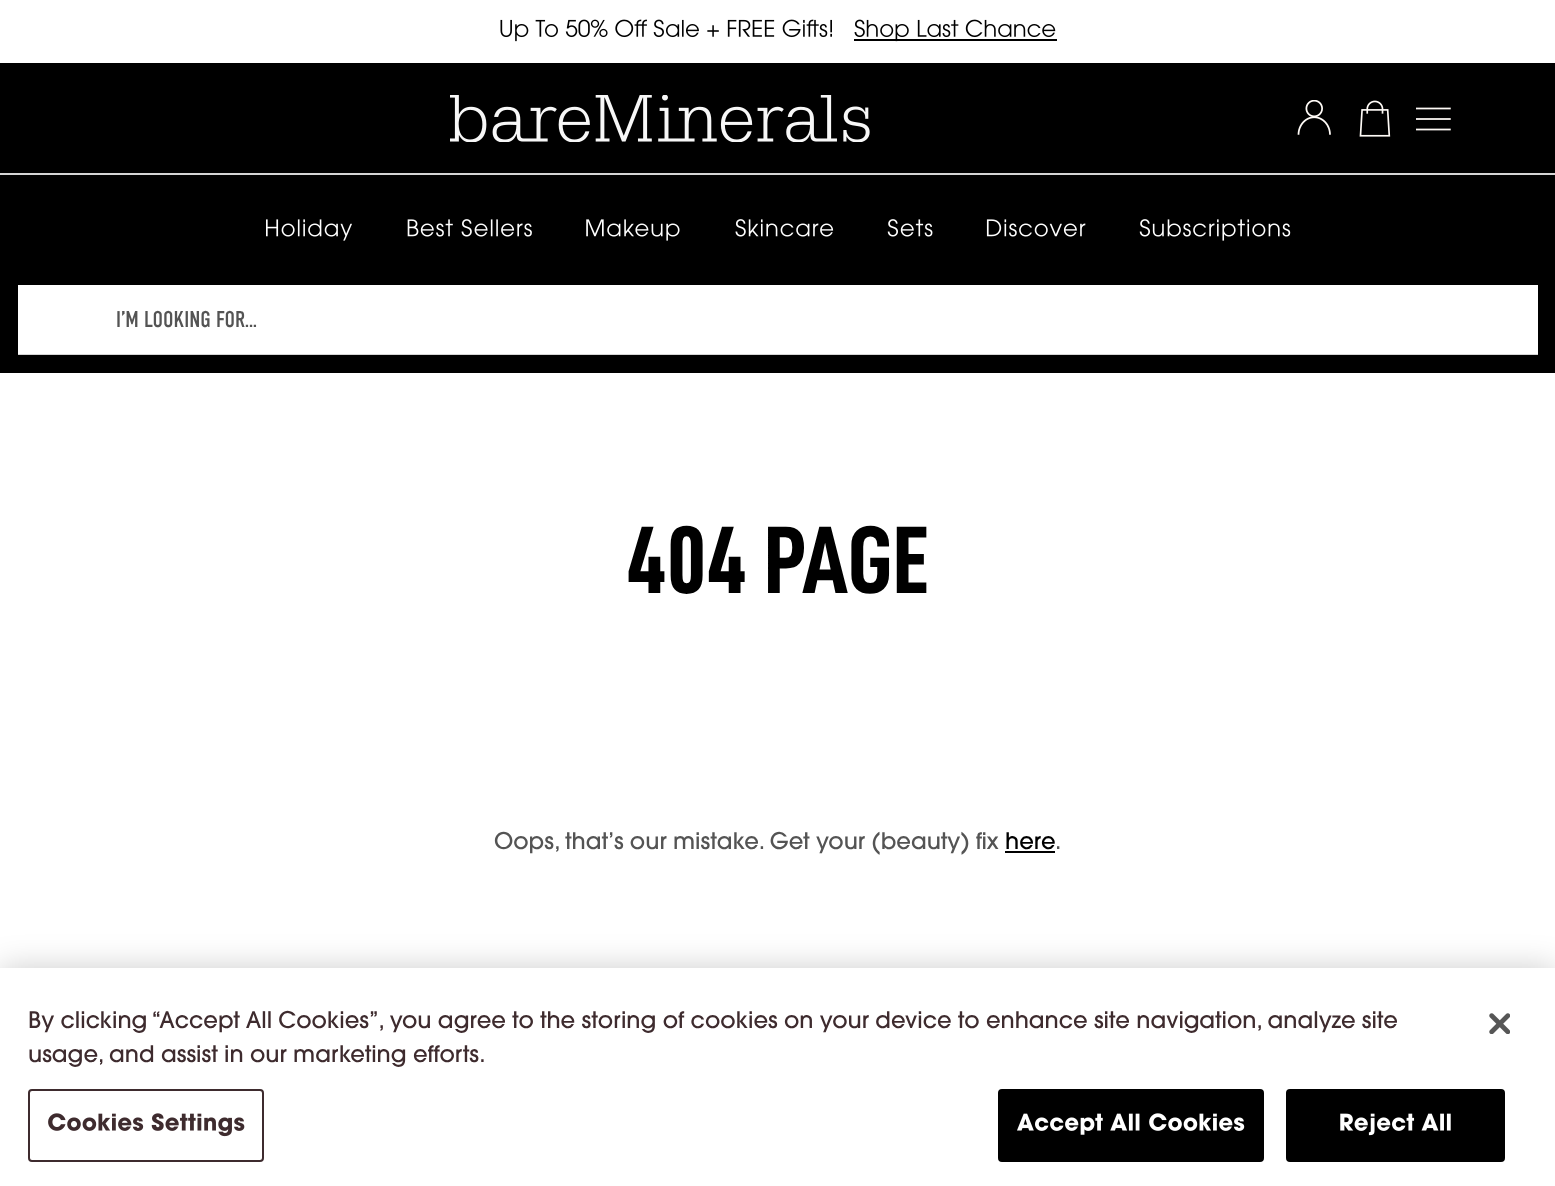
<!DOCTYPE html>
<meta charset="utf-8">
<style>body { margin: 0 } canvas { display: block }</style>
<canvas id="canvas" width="1555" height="1186"></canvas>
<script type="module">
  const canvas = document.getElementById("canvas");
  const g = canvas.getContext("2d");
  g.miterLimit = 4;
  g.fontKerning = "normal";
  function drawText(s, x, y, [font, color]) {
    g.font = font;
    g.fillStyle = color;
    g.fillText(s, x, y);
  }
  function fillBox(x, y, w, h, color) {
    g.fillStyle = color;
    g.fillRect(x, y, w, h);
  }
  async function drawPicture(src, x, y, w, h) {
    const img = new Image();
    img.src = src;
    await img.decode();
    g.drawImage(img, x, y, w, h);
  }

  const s1 = ["22.75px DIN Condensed", "#545454"];
  const s2 = ["bold 96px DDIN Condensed", "#000000"];
  const s3 = ["500 22.75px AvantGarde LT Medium", "#545454"];
  const s4 = ["500 22.75px AvantGarde LT Medium", "#000000"];
  const s5 = ["500 22.75px AvantGarde LT Medium", "#3E2B2E"];

  fillBox(0, 0, 1555, 1186, "#FFFFFF");
  await drawPicture("pic1.png", 500, 19, 332, 23);
  fillBox(854, 39, 203, 2, "#000000");
  await drawPicture("pic2.png", 854, 19, 202, 23);
  fillBox(0, 63, 1555, 310, "#000000");
  fillBox(0, 173, 1555, 2, "#D5D5D5");
  await drawPicture("pic3.png", 450, 95, 420, 47);
  await drawPicture("pic4.png", 1297, 100, 34, 35);
  await drawPicture("pic5.png", 1359, 100, 32, 37);
  await drawPicture("pic6.png", 1416, 107, 35, 24);
  await drawPicture("pic7.png", 266, 219, 86, 22);
  await drawPicture("pic8.png", 407, 219, 125, 18);
  await drawPicture("pic9.png", 586, 219, 94, 22);
  await drawPicture("pic10.png", 735, 219, 99, 18);
  await drawPicture("pic11.png", 887, 219, 46, 18);
  await drawPicture("pic12.png", 986, 219, 100, 18);
  await drawPicture("pic13.png", 1139, 219, 152, 22);
  fillBox(18, 285, 1520, 69, "#FFFFFF");
  drawText("I’M LOOKING FOR…", 116, 327, s1);
  fillBox(18, 354, 1520, 1, "#D5D5D5");
  drawText("404 PAGE", 626, 593, s2);
  drawText("Oops, that’s our mistake. Get your (beauty) fix", 494, 849, s3);
  drawText("here", 1005, 849, s4);
  fillBox(1005, 851, 50, 2, "#000000");
  drawText(".", 1055, 849, s3);
  g.fillStyle = "rgba(0, 0, 0, 0.2)";
  g.filter = "blur(16px)";
  g.beginPath();
  g.rect(0, 968, 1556, 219);
  g.fill();
  g.filter = "none";
  fillBox(0, 968, 1555, 218, "#FFFFFF");
  drawText("By clicking “Accept All Cookies”, you agree to the storing of cookies on your device to enhance site navigation, analyze site", 28, 1028, s5);
  drawText("usage, and assist in our marketing efforts.", 28, 1062, s5);
  g.beginPath();
  g.roundRect(29, 1090, 234, 71, 3);
  g.strokeStyle = "#3E2B2E";
  g.lineWidth = 2;
  g.stroke();
  await drawPicture("pic14.png", 48, 1113, 197, 24);
  g.fillStyle = "#000000";
  g.beginPath();
  g.roundRect(999, 1090, 264, 71, 3);
  g.fill();
  g.strokeStyle = "#000000";
  g.stroke();
  await drawPicture("pic15.png", 1017, 1113, 228, 22);
  g.beginPath();
  g.roundRect(1287, 1090, 217, 71, 3);
  g.fill();
  g.stroke();
  await drawPicture("pic16.png", 1340, 1113, 111, 23);
  await drawPicture("pic17.png", 1489, 1013, 21, 21);
</script>
